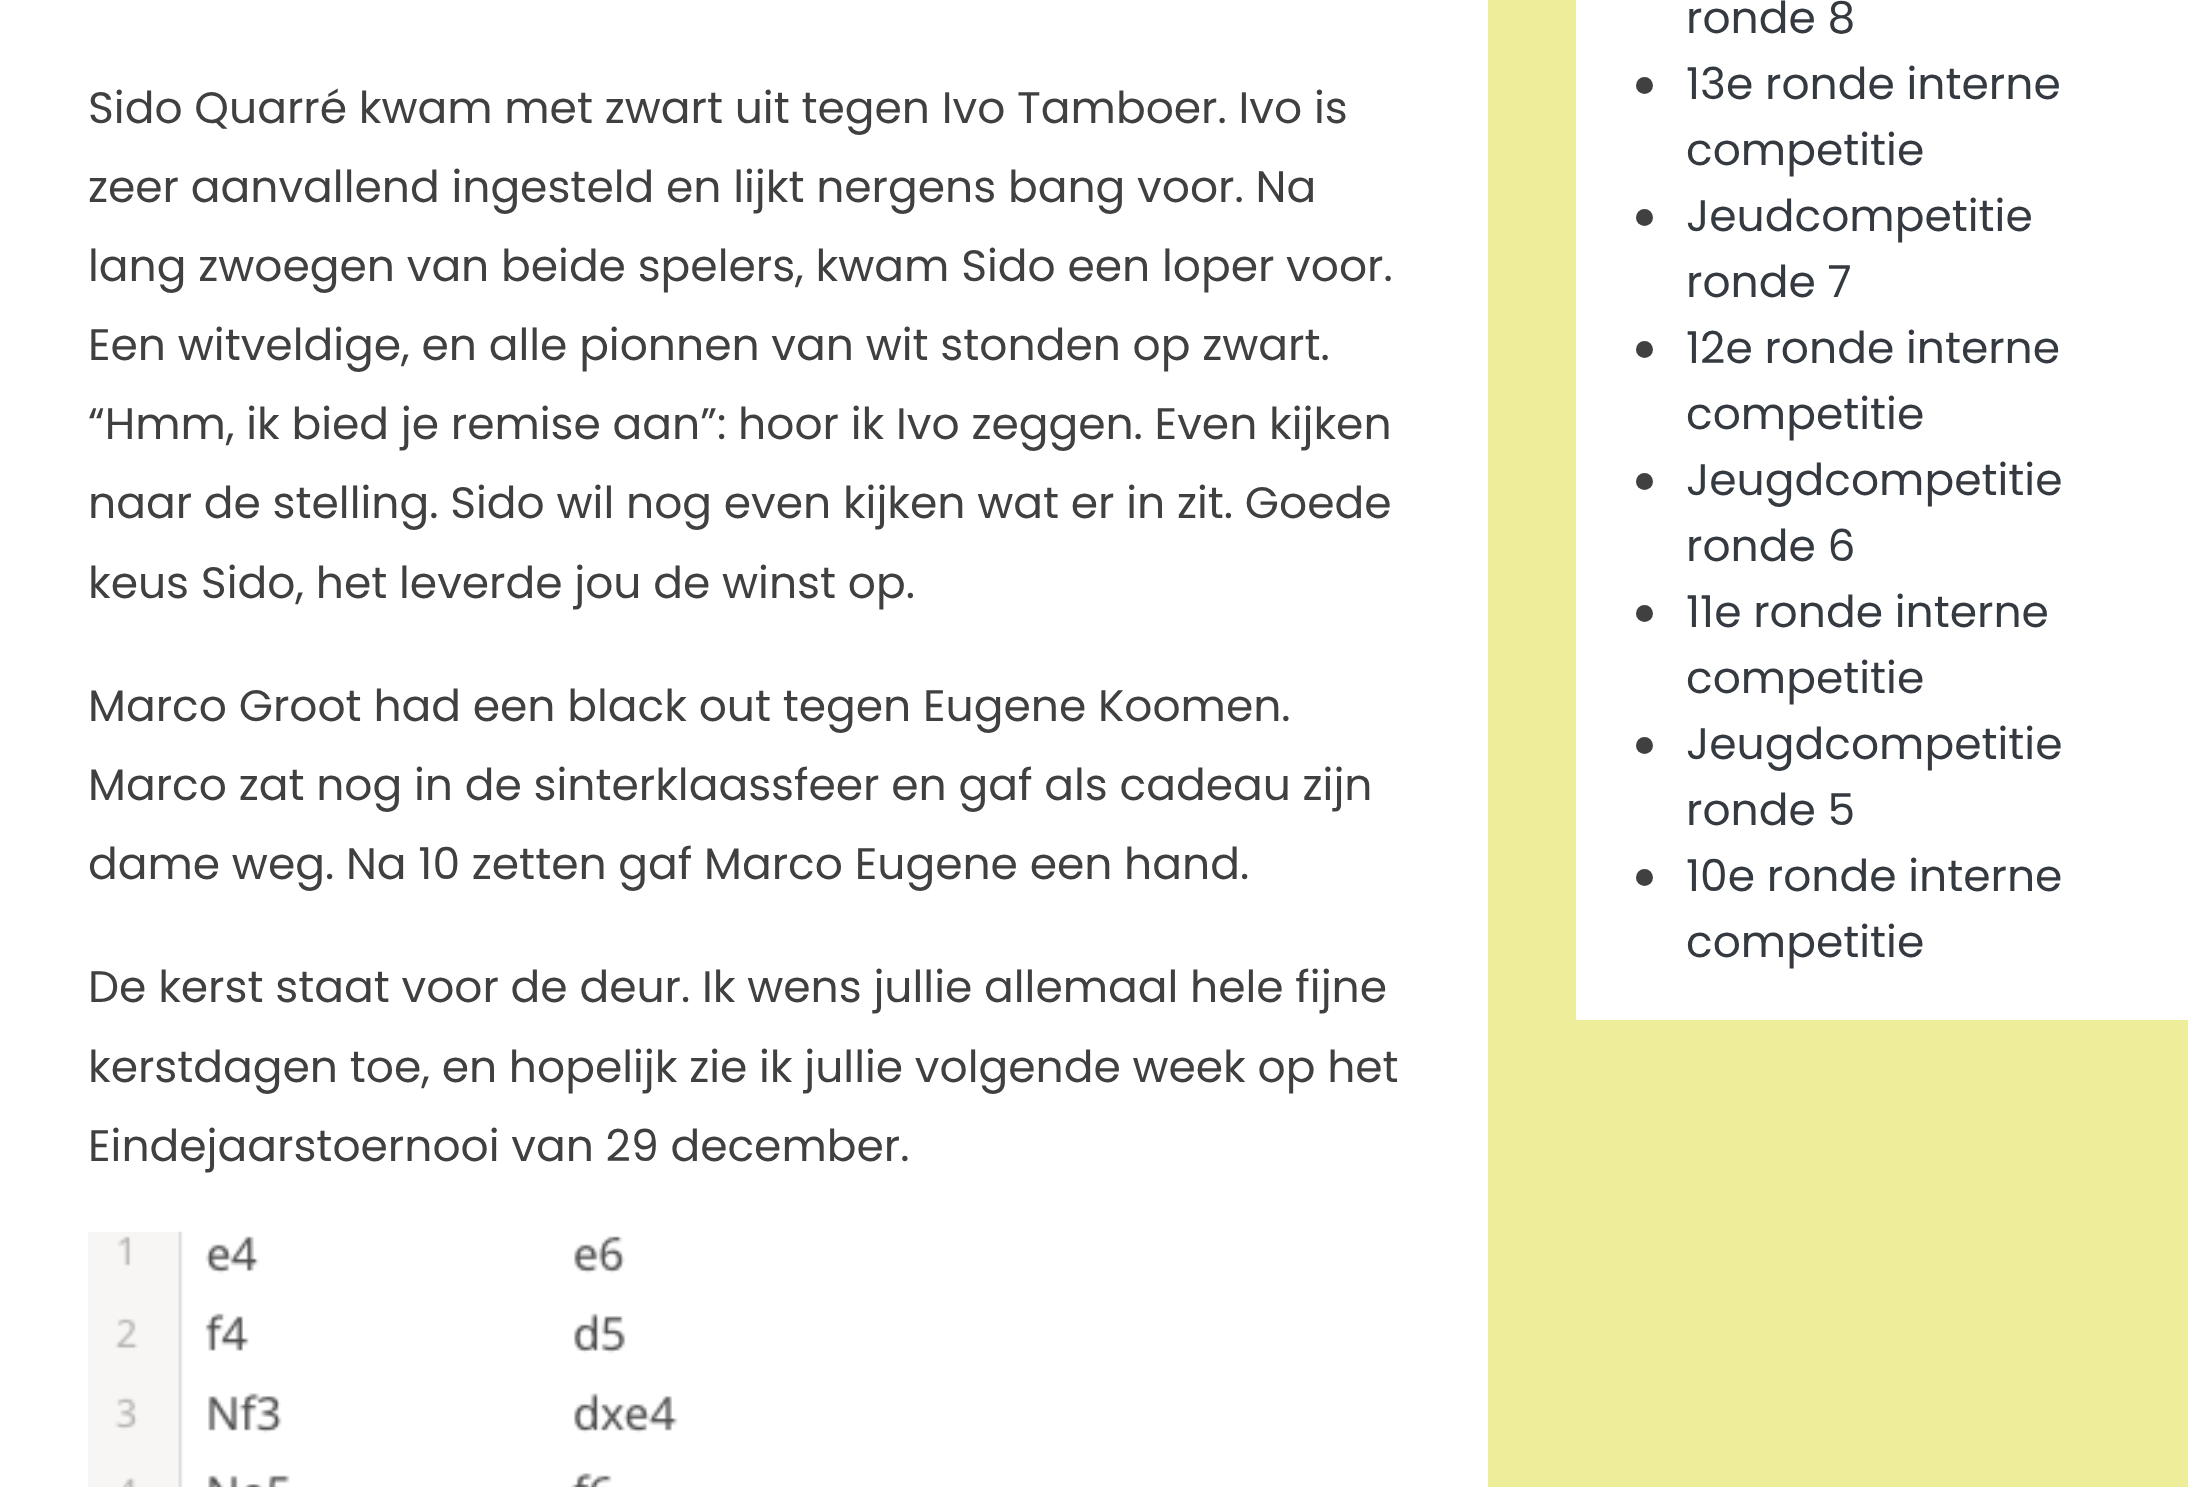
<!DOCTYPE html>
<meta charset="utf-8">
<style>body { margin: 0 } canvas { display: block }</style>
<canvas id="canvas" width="2188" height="1487"></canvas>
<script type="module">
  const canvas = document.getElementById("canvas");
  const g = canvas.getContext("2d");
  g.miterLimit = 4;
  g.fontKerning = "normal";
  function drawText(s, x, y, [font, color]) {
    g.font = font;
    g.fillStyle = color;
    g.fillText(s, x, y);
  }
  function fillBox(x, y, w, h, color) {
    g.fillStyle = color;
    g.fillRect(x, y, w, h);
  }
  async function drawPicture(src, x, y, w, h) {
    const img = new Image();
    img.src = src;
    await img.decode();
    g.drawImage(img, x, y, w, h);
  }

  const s1 = ["44px Poppins", "#404040"];
  const s2 = ["44px Poppins", "#343A40"];

  fillBox(0, 0, 2188, 1487, "#EDED9A");
  fillBox(0, 0, 1488, 1487, "#FFFFFF");
  drawText("Sido Quarré kwam met zwart uit tegen Ivo Tamboer. Ivo is", 88, 123, s1);
  drawText("zeer aanvallend ingesteld en lijkt nergens bang voor. Na", 88, 202, s1);
  drawText("lang zwoegen van beide spelers, kwam Sido een loper voor.", 88, 281, s1);
  drawText("Een witveldige, en alle pionnen van wit stonden op zwart.", 88, 360, s1);
  drawText("“Hmm, ik bied je remise aan”: hoor ik Ivo zeggen. Even kijken", 88, 439, s1);
  drawText("naar de stelling. Sido wil nog even kijken wat er in zit. Goede", 88, 518, s1);
  drawText("keus Sido, het leverde jou de winst op.", 88, 598, s1);
  drawText("Marco Groot had een black out tegen Eugene Koomen.", 88, 721, s1);
  drawText("Marco zat nog in de sinterklaassfeer en gaf als cadeau zijn", 88, 800, s1);
  drawText("dame weg. Na 10 zetten gaf Marco Eugene een hand.", 88, 879, s1);
  drawText("De kerst staat voor de deur. Ik wens jullie allemaal hele fijne", 88, 1002, s1);
  drawText("kerstdagen toe, en hopelijk zie ik jullie volgende week op het", 88, 1082, s1);
  drawText("Eindejaarstoernooi van 29 december.", 88, 1161, s1);
  await drawPicture("pic1.png", 88, 1231, 590, 256);
  fillBox(1576, 0, 612, 1020, "#FFFFFF");
  drawText("ronde 8", 1686, 33, s2);
  g.fillStyle = "#404040";
  g.beginPath();
  g.arc(1644.5, 85.5, 8.5, 0, Math.PI * 2);
  g.fill();
  drawText("13e ronde interne", 1686, 99, s2);
  drawText("competitie", 1686, 165, s2);
  g.fillStyle = "#404040";
  g.beginPath();
  g.arc(1644.5, 217.5, 8.5, 0, Math.PI * 2);
  g.fill();
  drawText("Jeudcompetitie", 1686, 231, s2);
  drawText("ronde 7", 1686, 297, s2);
  g.fillStyle = "#404040";
  g.beginPath();
  g.arc(1644.5, 349.5, 8.5, 0, Math.PI * 2);
  g.fill();
  drawText("12e ronde interne", 1686, 363, s2);
  drawText("competitie", 1686, 429, s2);
  g.fillStyle = "#404040";
  g.beginPath();
  g.arc(1644.5, 481.5, 8.5, 0, Math.PI * 2);
  g.fill();
  drawText("Jeugdcompetitie", 1686, 495, s2);
  drawText("ronde 6", 1686, 561, s2);
  g.fillStyle = "#404040";
  g.beginPath();
  g.arc(1644.5, 613.5, 8.5, 0, Math.PI * 2);
  g.fill();
  drawText("11e ronde interne", 1686, 627, s2);
  drawText("competitie", 1686, 693, s2);
  g.fillStyle = "#404040";
  g.beginPath();
  g.arc(1644.5, 745.5, 8.5, 0, Math.PI * 2);
  g.fill();
  drawText("Jeugdcompetitie", 1686, 759, s2);
  drawText("ronde 5", 1686, 825, s2);
  g.fillStyle = "#404040";
  g.beginPath();
  g.arc(1644.5, 877.5, 8.5, 0, Math.PI * 2);
  g.fill();
  drawText("10e ronde interne", 1686, 891, s2);
  drawText("competitie", 1686, 957, s2);
</script>
